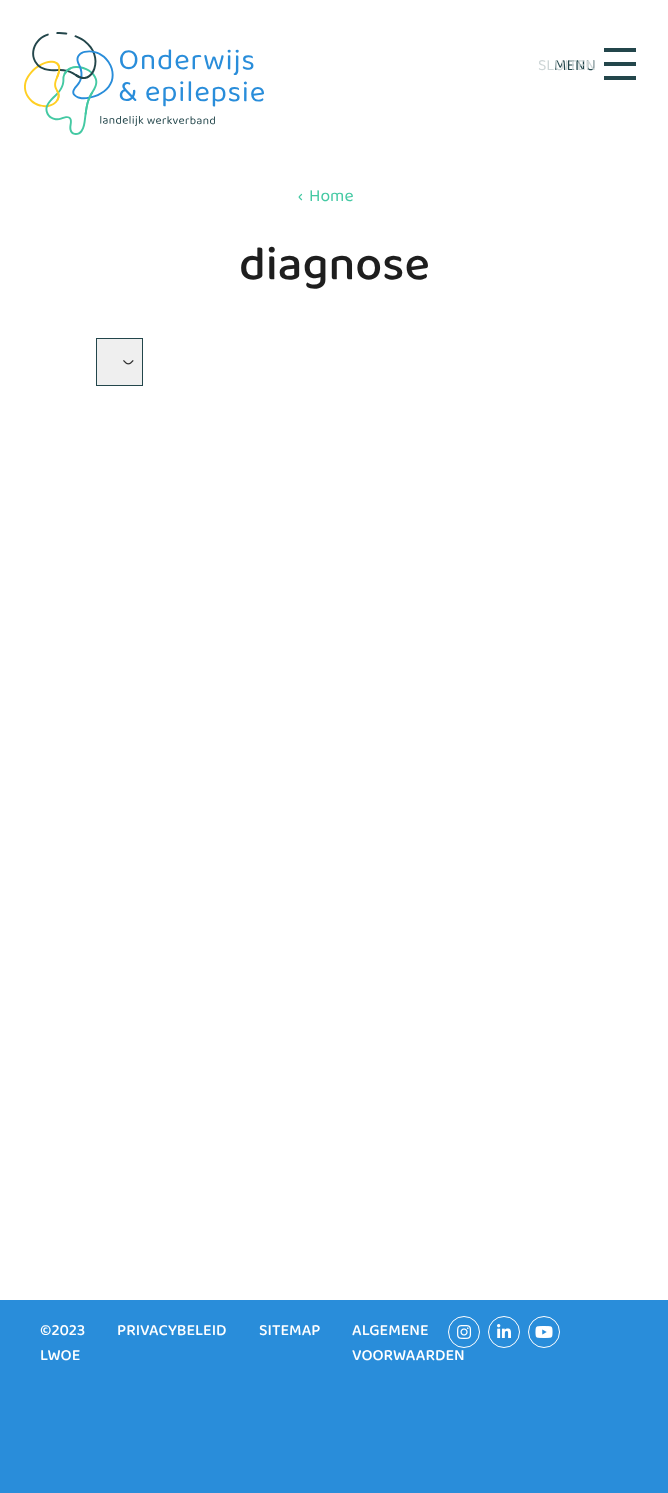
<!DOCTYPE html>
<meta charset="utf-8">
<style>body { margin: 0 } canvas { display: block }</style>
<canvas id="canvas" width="668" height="1493"></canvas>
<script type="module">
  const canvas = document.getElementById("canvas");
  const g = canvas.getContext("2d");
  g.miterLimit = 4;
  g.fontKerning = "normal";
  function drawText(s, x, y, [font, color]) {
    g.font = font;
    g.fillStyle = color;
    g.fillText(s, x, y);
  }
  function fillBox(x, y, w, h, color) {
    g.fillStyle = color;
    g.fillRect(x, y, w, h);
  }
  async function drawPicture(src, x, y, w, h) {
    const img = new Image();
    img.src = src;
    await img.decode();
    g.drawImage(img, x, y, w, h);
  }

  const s1 = ["16px 'Baloo 2'", "#23464B"];
  const s2 = ["16px 'Baloo 2'", "#CED6D7"];
  const s3 = ["17.5px 'Baloo 2'", "#44C9A3"];
  const s4 = ["500 48px 'Baloo 2'", "#1E1E1E"];
  const s5 = ["500 16px 'Baloo 2'", "#FFFFFF"];

  fillBox(0, 0, 668, 1493, "#FFFFFF");
  await drawPicture("pic1.png", 24, 32, 240, 103);
  drawText("MENU", 554, 70, s1);
  drawText("SLUITEN", 538, 70, s2);
  fillBox(604, 48, 32, 4, "#23464B");
  fillBox(604, 62, 32, 4, "#23464B");
  fillBox(604, 76, 32, 4, "#23464B");
  drawText("‹", 298, 201, s3);
  drawText("Home", 309, 201, s3);
  drawText("diagnose", 239, 279, s4);
  fillBox(97, 339, 45, 46, "#EFEFEF");
  await drawPicture("pic2.png", 123, 360, 11, 5);
  g.strokeStyle = "#23464B";
  g.strokeRect(96.5, 338.5, 46, 47);
  fillBox(0, 1300, 668, 193, "#298DDA");
  drawText("©2023", 40, 1335, s5);
  drawText("LWOE", 40, 1360, s5);
  drawText("PRIVACYBELEID", 117, 1335, s5);
  drawText("SITEMAP", 259, 1335, s5);
  drawText("ALGEMENE", 352, 1335, s5);
  drawText("VOORWAARDEN", 352, 1360, s5);
  g.beginPath();
  g.arc(464, 1332, 15.5, 0, Math.PI * 2);
  g.strokeStyle = "#FFFFFF";
  g.stroke();
  await drawPicture("pic3.png", 457, 1325, 15, 14);
  g.beginPath();
  g.arc(504, 1332, 15.5, 0, Math.PI * 2);
  g.stroke();
  await drawPicture("pic4.png", 497, 1324, 14, 14);
  g.beginPath();
  g.arc(544, 1332, 15.5, 0, Math.PI * 2);
  g.stroke();
  await drawPicture("pic5.png", 535, 1326, 18, 12);
</script>
